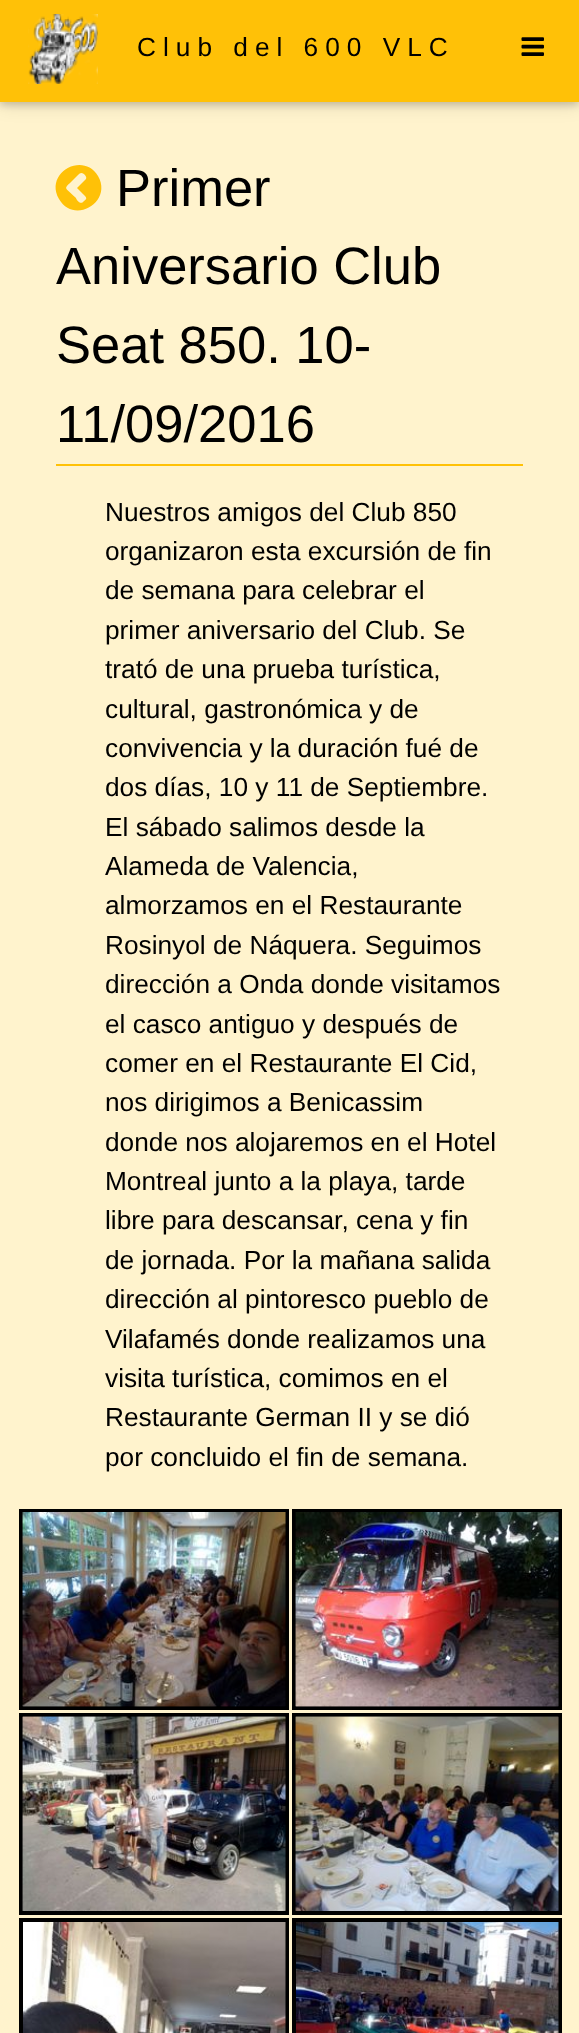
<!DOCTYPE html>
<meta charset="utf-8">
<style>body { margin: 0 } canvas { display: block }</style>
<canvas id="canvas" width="579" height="2033"></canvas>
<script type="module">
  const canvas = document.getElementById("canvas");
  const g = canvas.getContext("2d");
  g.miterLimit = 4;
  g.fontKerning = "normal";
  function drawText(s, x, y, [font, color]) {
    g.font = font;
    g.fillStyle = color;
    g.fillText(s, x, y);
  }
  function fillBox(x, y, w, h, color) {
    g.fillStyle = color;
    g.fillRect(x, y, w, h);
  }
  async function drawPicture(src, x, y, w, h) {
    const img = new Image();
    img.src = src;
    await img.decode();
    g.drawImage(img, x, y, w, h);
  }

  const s1 = ["26.25px Liberation Sans", "#000000"];
  const s2 = ["52.5px Liberation Sans", "#000000"];

  fillBox(0, 0, 579, 2033, "#FFF3CD");
  g.fillStyle = "rgba(0, 0, 0, 0.12)";
  g.filter = "blur(9px)";
  g.beginPath();
  g.rect(0, 4, 579, 101);
  g.fill();
  g.filter = "none";
  g.fillStyle = "rgba(0, 0, 0, 0.16)";
  g.filter = "blur(3.5px)";
  g.beginPath();
  g.rect(0, 4, 579, 101);
  g.fill();
  g.filter = "none";
  fillBox(0, 0, 579, 102, "#FFC107");
  await drawPicture("pic1.png", 28, 14, 70, 70);
  g.letterSpacing = "7px";
  drawText("Club del 600 VLC", 137, 56, s1);
  await drawPicture("pic2.png", 521, 37, 23, 19);
  fillBox(56, 464, 467, 2, "#FFC107");
  g.beginPath();
  g.moveTo(83, 202);
  g.bezierCurveTo(86, 199, 88, 199, 84, 195);
  g.lineTo(77, 188);
  g.lineTo(86, 179);
  g.bezierCurveTo(87, 177, 85, 175, 84, 174);
  g.bezierCurveTo(81, 172, 80, 173, 78, 175);
  g.lineTo(73, 180);
  g.bezierCurveTo(63, 190, 64, 186, 76, 198);
  g.bezierCurveTo(76, 199, 80, 205, 83, 202);
  g.closePath();
  g.moveTo(98, 176);
  g.bezierCurveTo(113, 202, 74, 225, 59, 199);
  g.bezierCurveTo(44, 173, 83, 151, 98, 176);
  g.closePath();
  g.fill();
  g.letterSpacing = "0px";
  drawText("Primer", 116, 206, s2);
  drawText("Aniversario Club", 56, 284, s2);
  drawText("Seat 850. 10-", 56, 363, s2);
  drawText("11/09/2016", 56, 442, s2);
  drawText("Nuestros amigos del Club 850", 105, 521, s1);
  drawText("organizaron esta excursión de fin", 105, 560, s1);
  drawText("de semana para celebrar el", 105, 599, s1);
  drawText("primer aniversario del Club. Se", 105, 639, s1);
  drawText("trató de una prueba turística,", 105, 678, s1);
  drawText("cultural, gastronómica y de", 105, 718, s1);
  drawText("convivencia y la duración fué de", 105, 757, s1);
  drawText("dos días, 10 y 11 de Septiembre.", 105, 796, s1);
  drawText("El sábado salimos desde la", 105, 836, s1);
  drawText("Alameda de Valencia,", 105, 875, s1);
  drawText("almorzamos en el Restaurante", 105, 914, s1);
  drawText("Rosinyol de Náquera. Seguimos", 105, 954, s1);
  drawText("dirección a Onda donde visitamos", 105, 993, s1);
  drawText("el casco antiguo y después de", 105, 1033, s1);
  drawText("comer en el Restaurante El Cid,", 105, 1072, s1);
  drawText("nos dirigimos a Benicassim", 105, 1111, s1);
  drawText("donde nos alojaremos en el Hotel", 105, 1151, s1);
  drawText("Montreal junto a la playa, tarde", 105, 1190, s1);
  drawText("libre para descansar, cena y fin", 105, 1229, s1);
  drawText("de jornada. Por la mañana salida", 105, 1269, s1);
  drawText("dirección al pintoresco pueblo de", 105, 1308, s1);
  drawText("Vilafamés donde realizamos una", 105, 1348, s1);
  drawText("visita turística, comimos en el", 105, 1387, s1);
  drawText("Restaurante German II y se dió", 105, 1426, s1);
  drawText("por concluido el fin de semana.", 105, 1466, s1);
  fillBox(19, 1509, 270, 201, "#000000");
  await drawPicture("pic3.png", 22, 1512, 264, 195);
  await drawPicture("pic4.png", 22, 1512, 264, 195);
  fillBox(292, 1509, 270, 201, "#000000");
  await drawPicture("pic5.png", 295, 1512, 264, 195);
  await drawPicture("pic6.png", 295, 1512, 264, 195);
  fillBox(19, 1713, 270, 202, "#000000");
  await drawPicture("pic7.png", 22, 1716, 264, 195);
  await drawPicture("pic8.png", 22, 1716, 264, 195);
  fillBox(292, 1713, 270, 202, "#000000");
  await drawPicture("pic9.png", 295, 1716, 264, 195);
  await drawPicture("pic10.png", 295, 1716, 264, 195);
  fillBox(19, 1918, 270, 115, "#000000");
  await drawPicture("pic11.png", 285, 1922, 1, 111);
  await drawPicture("pic12.png", 23, 1922, 262, 111);
  fillBox(292, 1918, 270, 115, "#000000");
  await drawPicture("pic13.png", 558, 1922, 1, 111);
  await drawPicture("pic14.png", 296, 1922, 262, 111);
</script>
